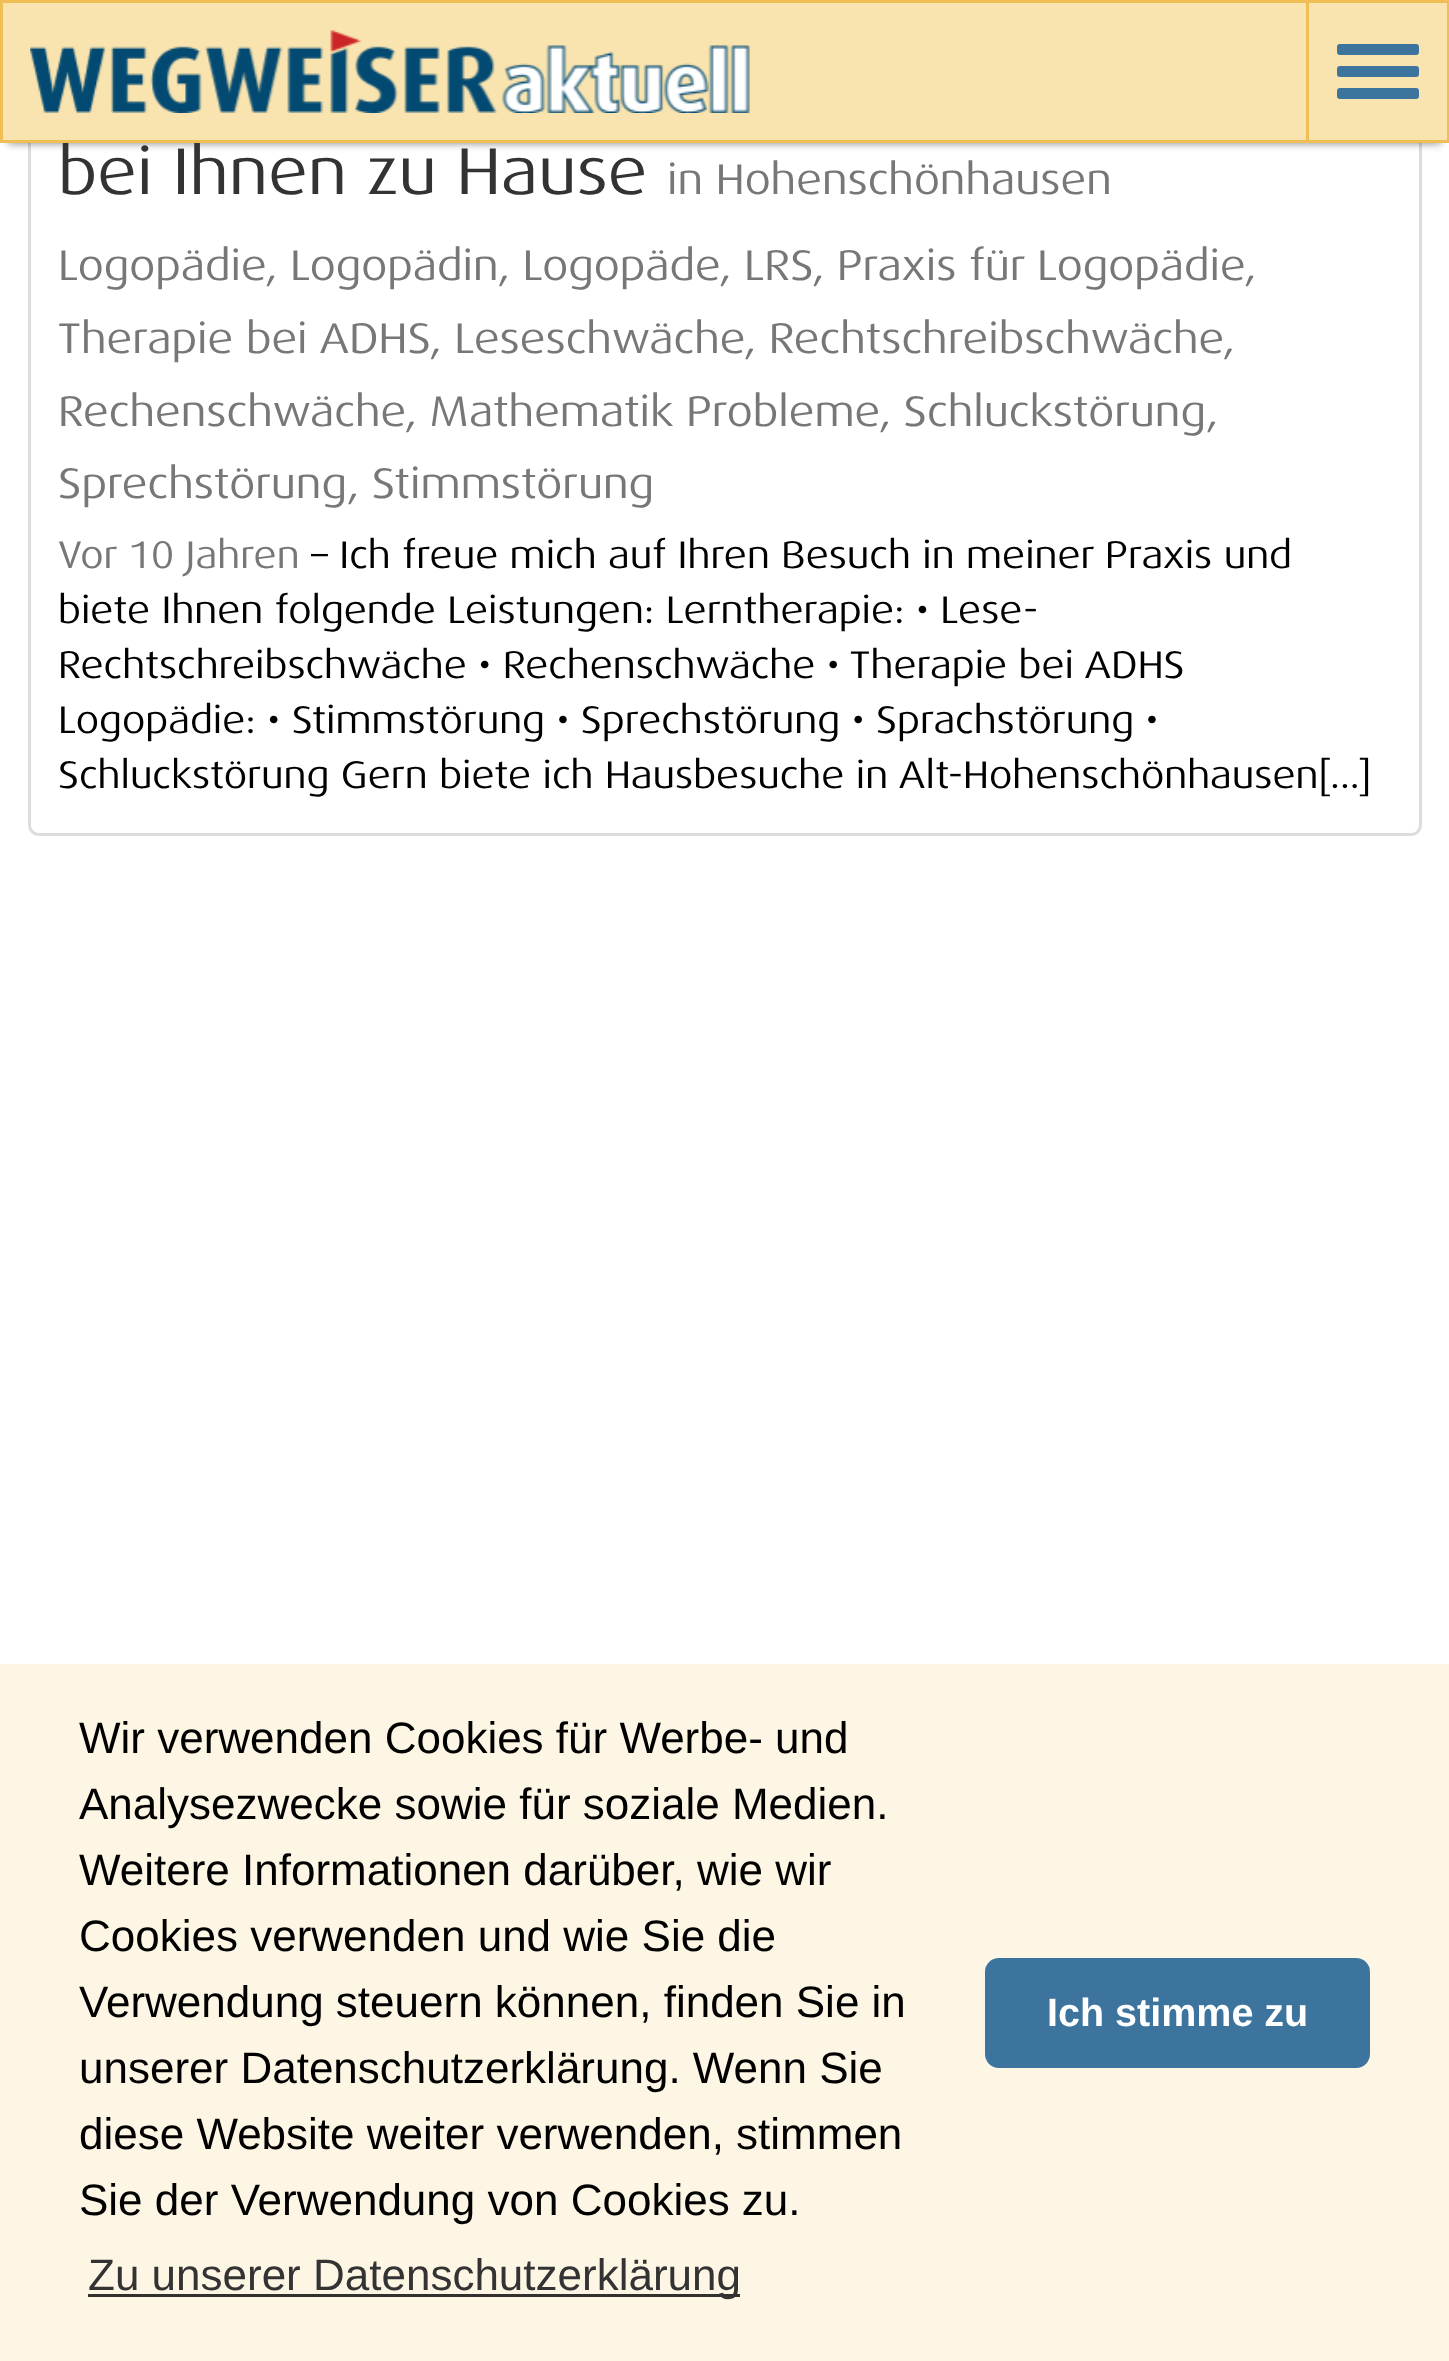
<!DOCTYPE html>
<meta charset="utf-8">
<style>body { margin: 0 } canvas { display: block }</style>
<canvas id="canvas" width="1449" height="2361"></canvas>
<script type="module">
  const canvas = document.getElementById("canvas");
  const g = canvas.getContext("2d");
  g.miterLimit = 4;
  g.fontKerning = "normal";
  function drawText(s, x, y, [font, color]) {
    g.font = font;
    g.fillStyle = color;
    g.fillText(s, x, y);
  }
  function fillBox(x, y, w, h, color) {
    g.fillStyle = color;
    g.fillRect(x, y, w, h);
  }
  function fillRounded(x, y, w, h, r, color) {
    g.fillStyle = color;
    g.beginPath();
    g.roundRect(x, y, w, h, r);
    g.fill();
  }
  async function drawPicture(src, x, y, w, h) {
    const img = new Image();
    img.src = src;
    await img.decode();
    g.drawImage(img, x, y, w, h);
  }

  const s1 = ["66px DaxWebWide", "#333333"];
  const s2 = ["42.9px DaxWebWide", "#777777"];
  const s3 = ["38.5px DaxWebWide", "#777777"];
  const s4 = ["38.5px DaxWebWide", "#000000"];
  const s5 = ["44px Liberation Sans", "#000000"];
  const s6 = ["44px Liberation Sans", "#333333"];
  const s7 = ["bold 39.5px Liberation Sans", "#FFFFFF"];

  fillBox(0, 0, 1449, 2361, "#FFFFFF");
  g.beginPath();
  g.roundRect(29.5, -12.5, 1391, 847, 9.5);
  g.strokeStyle = "#DDDDDD";
  g.lineWidth = 3;
  g.stroke();
  g.fillStyle = "rgba(0, 0, 0, 0.5)";
  g.filter = "blur(4px)";
  g.beginPath();
  g.rect(8, 17, 1433, 126);
  g.fill();
  g.filter = "none";
  fillBox(3, 3, 1303, 137, "#F9E4B0");
  drawText("bei Ihnen zu Hause", 58, 194, s1);
  g.strokeStyle = "#EFBE55";
  g.strokeRect(1.5, 1.5, 1446, 140);
  await drawPicture("pic1.png", 30, 30, 720, 83);
  fillBox(1309, 3, 138, 137, "#F9E4B0");
  fillBox(1306, 3, 3, 137, "#EFBE55");
  fillRounded(1337, 44, 82, 11, 3, "#3C749E");
  fillRounded(1337, 66, 82, 11, 3, "#3C749E");
  fillRounded(1337, 88, 82, 11, 3, "#3C749E");
  drawText("in Hohenschönhausen", 667, 194, s2);
  drawText("Logopädie, Logopädin, Logopäde, LRS, Praxis für Logopädie,", 58, 280, s2);
  drawText("Therapie bei ADHS, Leseschwäche, Rechtschreibschwäche,", 58, 353, s2);
  drawText("Rechenschwäche, Mathematik Probleme, Schluckstörung,", 58, 426, s2);
  drawText("Sprechstörung, Stimmstörung", 58, 498, s2);
  drawText("Vor 10 Jahren", 58, 568, s3);
  drawText("– Ich freue mich auf Ihren Besuch in meiner Praxis und", 311, 568, s4);
  drawText("biete Ihnen folgende Leistungen: Lerntherapie: • Lese-", 58, 623, s4);
  drawText("Rechtschreibschwäche • Rechenschwäche • Therapie bei ADHS", 58, 678, s4);
  drawText("Logopädie: • Stimmstörung • Sprechstörung • Sprachstörung •", 58, 733, s4);
  drawText("Schluckstörung Gern biete ich Hausbesuche in Alt-Hohenschönhausen[...]", 58, 788, s4);
  fillBox(0, 1664, 1449, 697, "#FEF6E4");
  drawText("Wir verwenden Cookies für Werbe- und", 79, 1753, s5);
  drawText("Analysezwecke sowie für soziale Medien.", 79, 1819, s5);
  drawText("Weitere Informationen darüber, wie wir", 79, 1885, s5);
  drawText("Cookies verwenden und wie Sie die", 79, 1951, s5);
  drawText("Verwendung steuern können, finden Sie in", 79, 2017, s5);
  drawText("unserer Datenschutzerklärung. Wenn Sie", 79, 2083, s5);
  drawText("diese Website weiter verwenden, stimmen", 79, 2149, s5);
  drawText("Sie der Verwendung von Cookies zu.", 79, 2215, s5);
  fillBox(88, 2294, 652, 3, "#33312E");
  drawText("Zu unserer Datenschutzerklärung", 88, 2290, s6);
  fillRounded(985, 1958, 385, 110, 14, "#3C749E");
  drawText("Ich stimme zu", 1047, 2026, s7);
</script>
